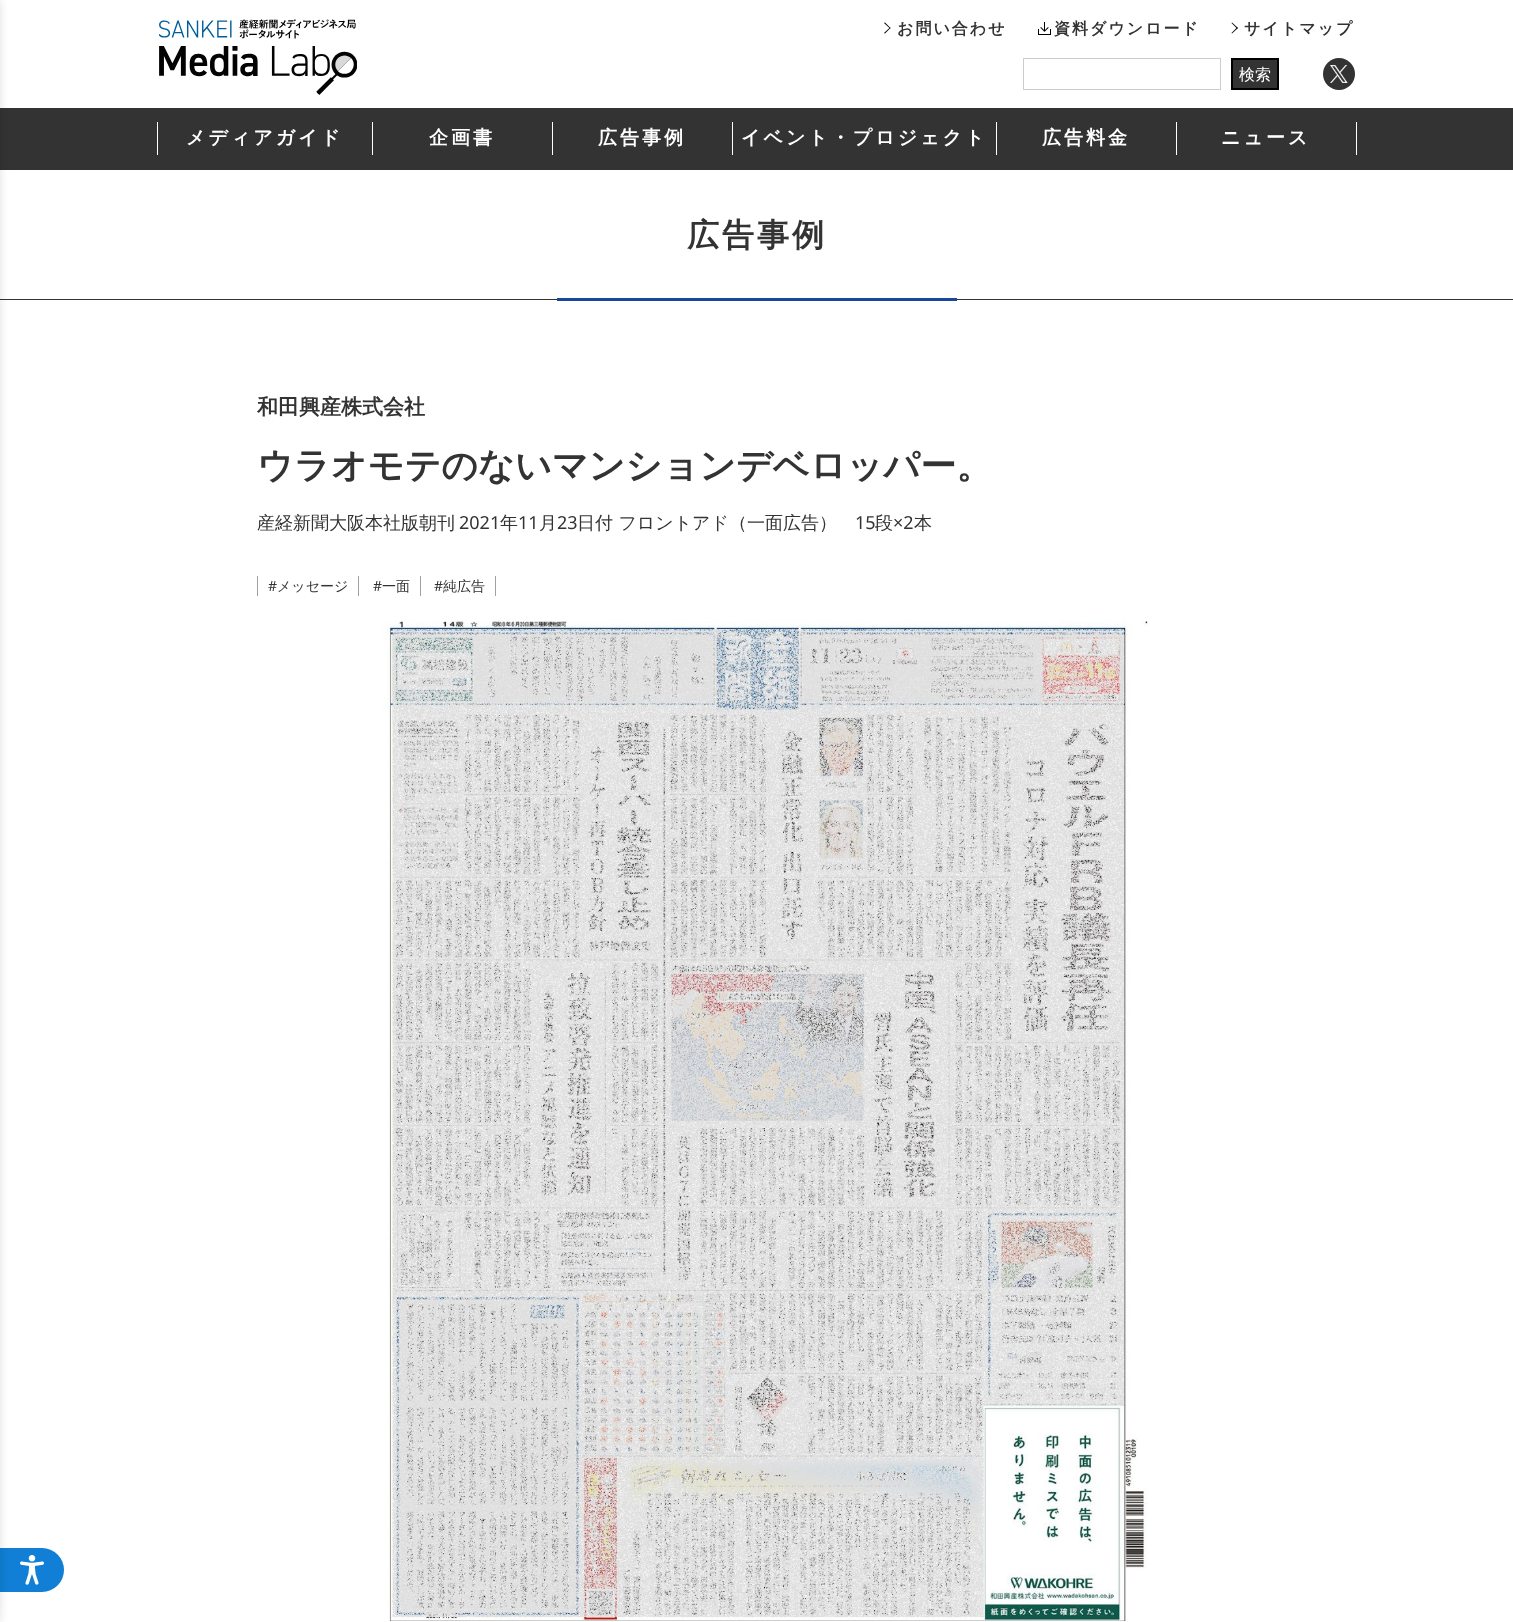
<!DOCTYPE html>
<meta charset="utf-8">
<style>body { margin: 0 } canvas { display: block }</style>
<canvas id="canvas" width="1513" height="1622"></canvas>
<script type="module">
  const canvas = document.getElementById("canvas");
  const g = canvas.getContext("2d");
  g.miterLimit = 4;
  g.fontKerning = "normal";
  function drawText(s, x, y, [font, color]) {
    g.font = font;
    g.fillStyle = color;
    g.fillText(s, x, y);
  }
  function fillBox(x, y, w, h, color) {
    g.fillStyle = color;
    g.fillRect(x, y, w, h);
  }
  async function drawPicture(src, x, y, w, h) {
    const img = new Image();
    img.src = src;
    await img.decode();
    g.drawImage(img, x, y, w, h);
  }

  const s1 = ["bold 16px WenQuanYi Zen Hei", "#333333"];
  const s2 = ["500 16px WenQuanYi Zen Hei", "#FFFFFF"];
  const s3 = ["bold 19px WenQuanYi Zen Hei", "#FFFFFF"];
  const s4 = ["bold 32px WenQuanYi Zen Hei", "#333333"];
  const s5 = ["bold 21px WenQuanYi Zen Hei", "#333333"];
  const s6 = ["bold 36px WenQuanYi Zen Hei", "#333333"];
  const s7 = ["500 18px WenQuanYi Zen Hei", "#333333"];
  const s8 = ["18px Noto Sans", "#333333"];
  const s9 = ["14px Noto Sans", "#333333"];
  const s10 = ["500 14px WenQuanYi Zen Hei", "#333333"];

  fillBox(0, 0, 1513, 1622, "#FFFFFF");
  g.fillStyle = "#107FD5";
  g.beginPath();
  g.roundRect(0, 1548, 64, 44, [0, 22, 22, 0]);
  g.fill();
  fillBox(0, 108, 1513, 62, "#333333");
  fillBox(0, 299, 1513, 1, "#333333");
  g.fillStyle = "rgba(0, 0, 0, 0.12)";
  g.filter = "blur(5px)";
  g.beginPath();
  g.rect(-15, 0, 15, 1622);
  g.fill();
  g.filter = "none";
  await drawPicture("pic1.png", 20, 1555, 24, 30);
  await drawPicture("pic2.png", 159, 19, 198, 76);
  g.fillStyle = "#000000";
  g.beginPath();
  g.moveTo(884, 23);
  g.lineTo(885, 22.5);
  g.lineTo(890.5, 28);
  g.lineTo(890, 28.5);
  g.closePath();
  g.fill();
  g.beginPath();
  g.moveTo(884, 33);
  g.lineTo(890, 27.5);
  g.lineTo(890.5, 28);
  g.lineTo(885, 33.5);
  g.closePath();
  g.fill();
  g.letterSpacing = "2px";
  drawText("お問い合わせ", 897, 34, s1);
  await drawPicture("pic3.png", 1038, 22, 13, 13);
  drawText("資料ダウンロード", 1054, 34, s1);
  g.fillStyle = "#000000";
  g.beginPath();
  g.moveTo(1231.5, 23);
  g.lineTo(1232, 22.5);
  g.lineTo(1238, 28);
  g.lineTo(1237, 28.5);
  g.closePath();
  g.fill();
  g.beginPath();
  g.moveTo(1231.5, 33);
  g.lineTo(1237, 27.5);
  g.lineTo(1238, 28);
  g.lineTo(1232, 33.5);
  g.closePath();
  g.fill();
  drawText("サイトマップ", 1244, 34, s1);
  g.strokeStyle = "#CCCCCC";
  g.strokeRect(1023.5, 58.5, 197, 31);
  g.beginPath();
  g.rect(1232, 59, 46, 30);
  g.fill();
  g.strokeStyle = "#000000";
  g.lineWidth = 2;
  g.stroke();
  g.letterSpacing = "0px";
  drawText("検索", 1239, 80, s2);
  g.fillStyle = "#333333";
  g.beginPath();
  g.arc(1339, 74, 16, 0, Math.PI * 2);
  g.fill();
  await drawPicture("pic4.png", 1330, 65, 18, 18);
  fillBox(372, 122, 1, 33, "#FFFFFF");
  fillBox(157, 122, 1, 33, "#FFFFFF");
  g.letterSpacing = "3px";
  drawText("メディアガイド", 186, 144, s3);
  fillBox(552, 122, 1, 33, "#FFFFFF");
  drawText("企画書", 429, 144, s3);
  fillBox(732, 122, 1, 33, "#FFFFFF");
  drawText("広告事例", 598, 144, s3);
  fillBox(996, 122, 1, 33, "#FFFFFF");
  drawText("イベント・プロジェクト", 741, 144, s3);
  fillBox(1176, 122, 1, 33, "#FFFFFF");
  drawText("広告料金", 1042, 144, s3);
  fillBox(1356, 122, 1, 33, "#FFFFFF");
  drawText("ニュース", 1221, 144, s3);
  fillBox(557, 298, 400, 3, "#194799");
  drawText("広告事例", 687, 246, s4);
  g.letterSpacing = "0px";
  drawText("和田興産株式会社", 257, 414, s5);
  drawText("ウラオモテのないマンションデベロッパー。", 257, 478, s6);
  drawText("産経新聞大阪本社版朝刊", 257, 529, s7);
  drawText("2021", 459, 529, s8);
  drawText("年", 500, 529, s7);
  drawText("11", 518, 529, s8);
  drawText("月", 539, 529, s7);
  drawText("23", 557, 529, s8);
  drawText("日付 フロントアド（一面広告）", 577, 529, s7);
  drawText("15", 855, 529, s8);
  drawText("段", 875, 529, s7);
  drawText("×2", 893, 529, s8);
  drawText("本", 914, 529, s7);
  fillBox(257, 576, 1, 20, "#A1A1A1");
  fillBox(358, 576, 1, 20, "#A1A1A1");
  drawText("#", 268, 591, s9);
  drawText("メッセージ", 277, 591, s10);
  fillBox(420, 576, 1, 20, "#A1A1A1");
  drawText("#", 373, 591, s9);
  drawText("一面", 382, 591, s10);
  fillBox(495, 576, 1, 20, "#A1A1A1");
  drawText("#", 434, 591, s9);
  drawText("純広告", 443, 591, s10);
  await drawPicture("pic5.png", 382, 621, 766, 1000);
</script>
